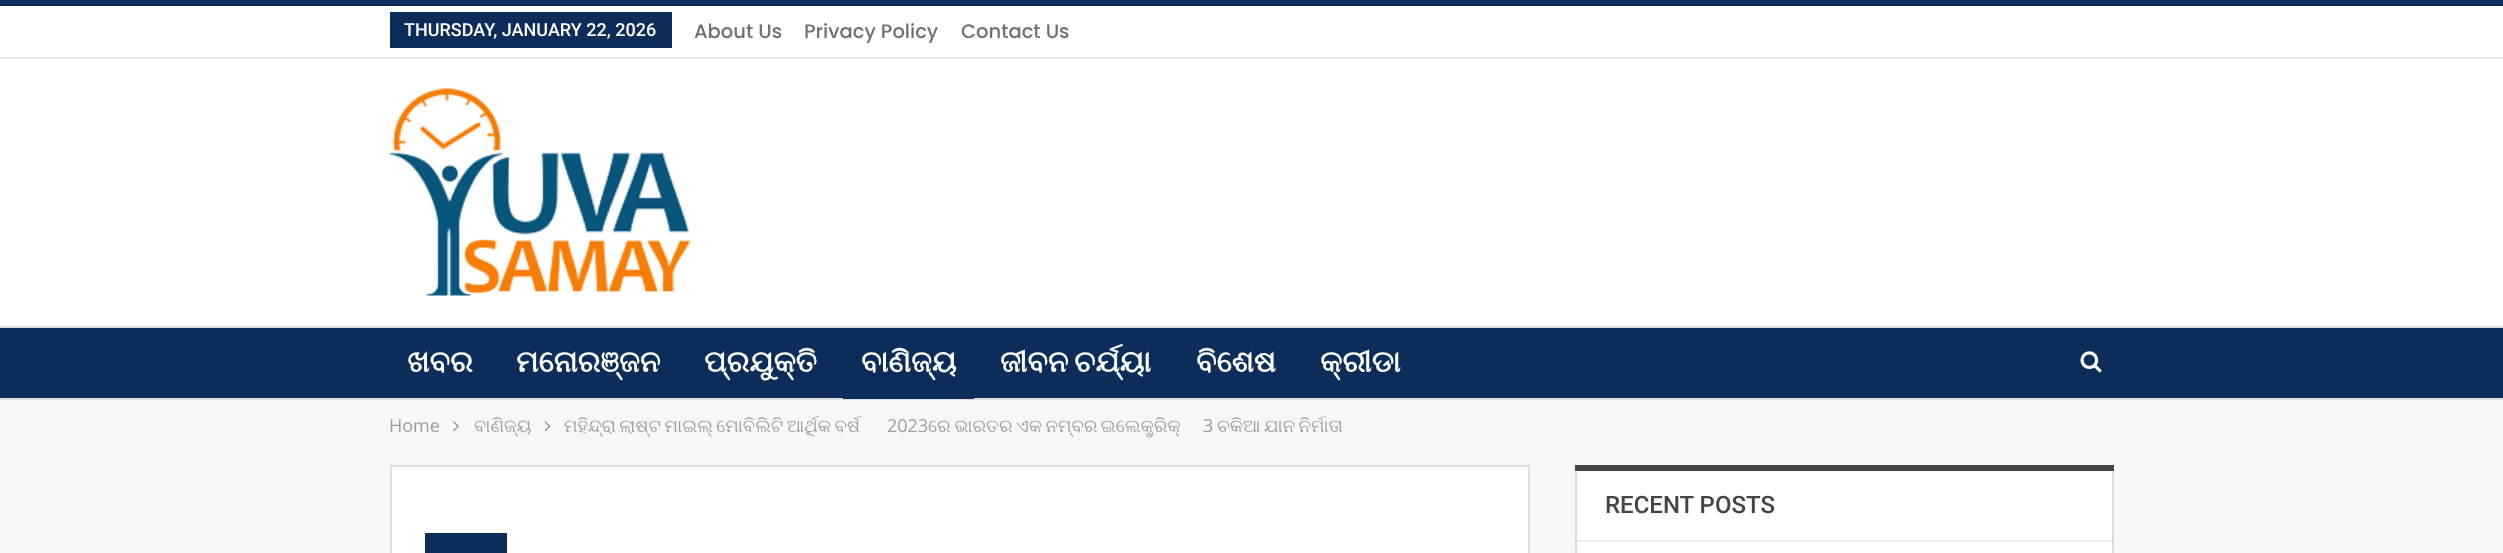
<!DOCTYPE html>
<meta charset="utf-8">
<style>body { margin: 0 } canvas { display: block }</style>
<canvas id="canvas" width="2503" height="553"></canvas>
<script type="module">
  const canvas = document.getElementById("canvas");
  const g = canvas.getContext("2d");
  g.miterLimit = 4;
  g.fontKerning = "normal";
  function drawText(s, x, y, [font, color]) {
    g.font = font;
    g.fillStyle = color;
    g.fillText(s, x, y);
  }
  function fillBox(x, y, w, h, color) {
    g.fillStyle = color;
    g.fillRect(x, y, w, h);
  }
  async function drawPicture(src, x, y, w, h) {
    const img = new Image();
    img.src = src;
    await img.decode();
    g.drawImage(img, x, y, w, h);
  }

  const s1 = ["500 18px Roboto", "#FFFFFF"];
  const s2 = ["500 19.5px Poppins", "#707070"];
  const s3 = ["bold 30px FreeSerif", "#FFFFFF"];
  const s4 = ["18px Open Sans", "#9E9E9E"];
  const s5 = ["18px FreeSerif", "#9E9E9E"];
  const s6 = ["500 24px Roboto", "#444444"];

  fillBox(0, 0, 2503, 553, "#F7F7F7");
  fillBox(0, 0, 2503, 6, "#0C2D59");
  fillBox(0, 6, 2503, 320, "#FFFFFF");
  fillBox(0, 57, 2503, 2, "#E6E6E6");
  fillBox(390, 12, 282, 36, "#0C2D59");
  drawText("THURSDAY, JANUARY 22, 2026", 404, 36, s1);
  drawText("About Us", 694, 38, s2);
  drawText("Privacy Policy", 804, 38, s2);
  drawText("Contact Us", 961, 38, s2);
  await drawPicture("pic1.png", 390, 88, 300, 208);
  fillBox(0, 328, 2503, 70, "#0C2D59");
  fillBox(0, 326, 2503, 2, "#DEDEDE");
  fillBox(0, 398, 2503, 2, "#DEDEDE");
  drawText("ଖବର", 407, 372, s3);
  drawText("ମନୋରଞ୍ଜନ", 516, 372, s3);
  drawText("ପ୍ରଯୁକ୍ତି", 704, 372, s3);
  drawText("ବାଣିଜ୍ୟ", 861, 372, s3);
  fillBox(843, 398, 131, 1, "#0C2D59");
  g.wordSpacing = "-2px";
  drawText("ଜୀବନ ଚର୍ଯ୍ୟା", 1000, 372, s3);
  g.wordSpacing = "0px";
  drawText("ବିଶେଷ", 1196, 372, s3);
  drawText("କ୍ରୀଡା", 1320, 372, s3);
  await drawPicture("pic2.png", 2080, 351, 22, 22);
  drawText("Home", 389, 432, s4);
  await drawPicture("pic3.png", 453, 421, 6, 11);
  drawText("ବାଣିଜ୍ୟ", 474, 432, s5);
  await drawPicture("pic4.png", 544, 421, 7, 11);
  g.wordSpacing = "-1px";
  drawText("ମହିନ୍ଦ୍ରା ଲାଷ୍ଟ ମାଇଲ୍ ମୋବିଲିଟି ଆର୍ଥିକ ବର୍ଷ", 564, 432, s5);
  g.wordSpacing = "0px";
  drawText("2023", 887, 432, s4);
  g.wordSpacing = "-1px";
  drawText("ରେ ଭାରତର ଏକ ନମ୍ବର ଇଲେକ୍ଟ୍ରିକ୍", 928, 432, s5);
  g.wordSpacing = "0px";
  drawText("3", 1203, 432, s4);
  g.wordSpacing = "-1px";
  drawText("ଚକିଆ ଯାନ ନିର୍ମାତା", 1217, 432, s5);
  g.fillStyle = "#FFFFFF";
  g.beginPath();
  g.rect(391, 466, 1138, 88);
  g.fill();
  g.strokeStyle = "#DEDEDE";
  g.lineWidth = 2;
  g.stroke();
  fillBox(425, 533, 82, 20, "#0C2D59");
  fillBox(1577, 471, 535, 82, "#FFFFFF");
  g.strokeRect(1576, 466, 537, 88);
  fillBox(1575, 465, 539, 6, "#444444");
  g.wordSpacing = "0px";
  drawText("RECENT POSTS", 1605, 513, s6);
  fillBox(1575, 540, 539, 2, "rgba(0, 0, 0, 0.07)");
</script>
